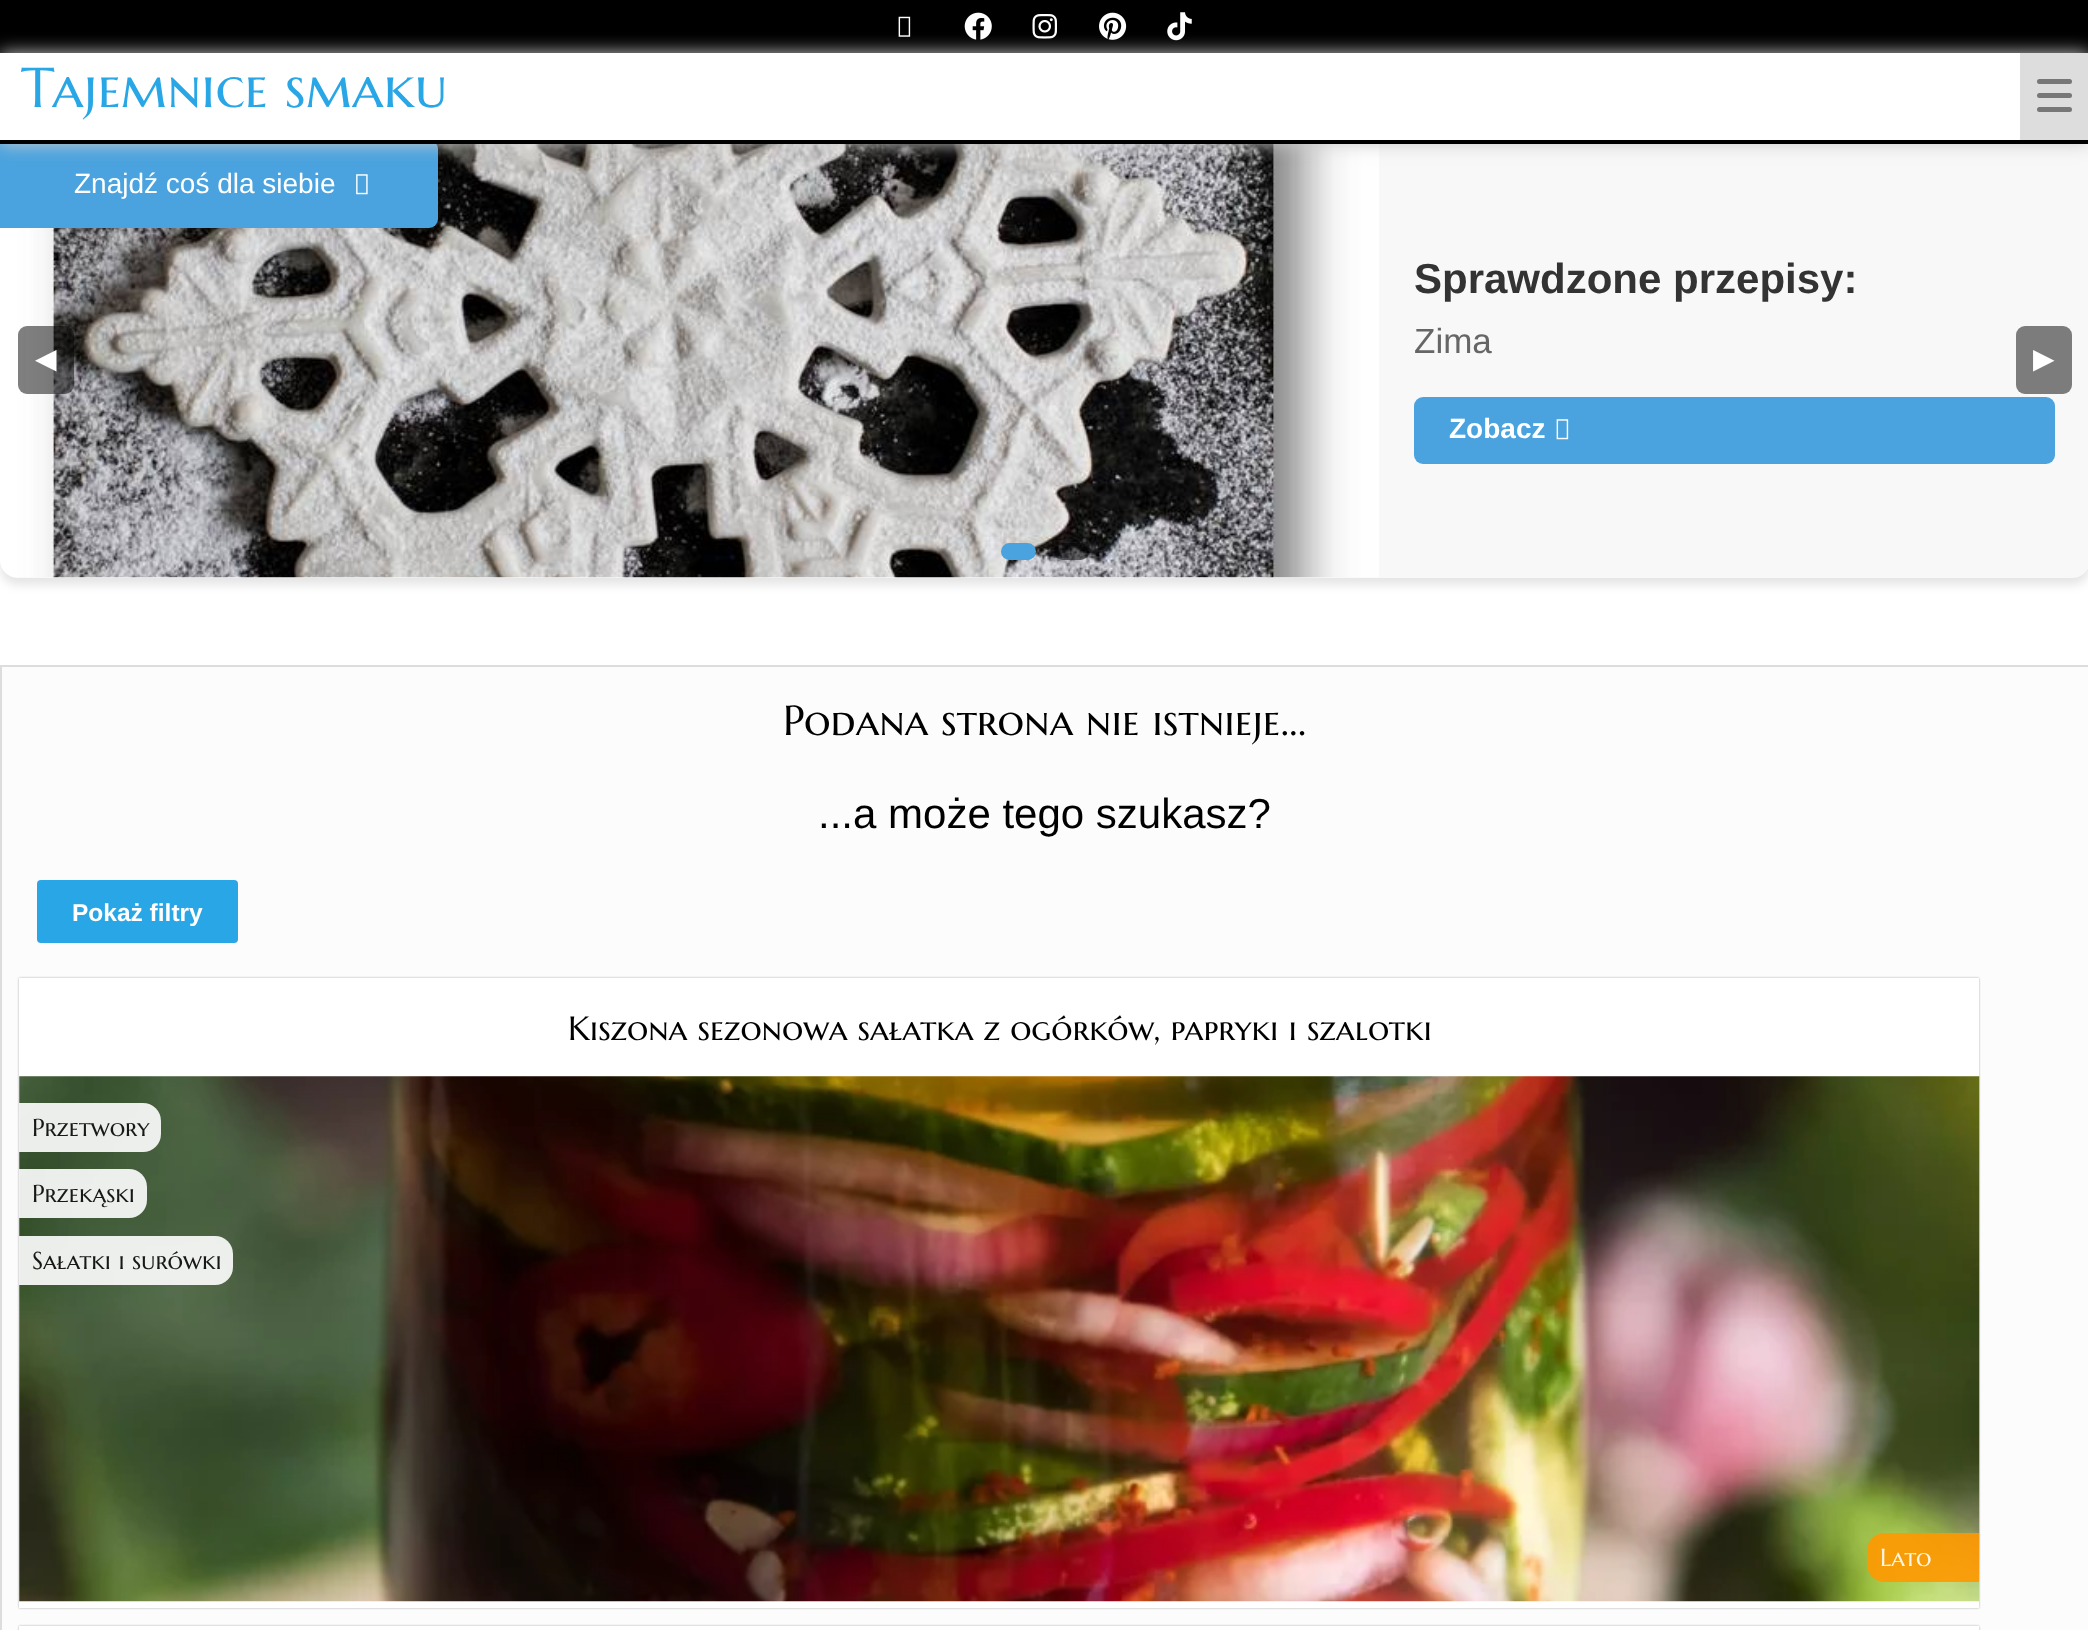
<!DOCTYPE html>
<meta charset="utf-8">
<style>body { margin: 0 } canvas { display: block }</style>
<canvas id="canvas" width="2088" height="1630"></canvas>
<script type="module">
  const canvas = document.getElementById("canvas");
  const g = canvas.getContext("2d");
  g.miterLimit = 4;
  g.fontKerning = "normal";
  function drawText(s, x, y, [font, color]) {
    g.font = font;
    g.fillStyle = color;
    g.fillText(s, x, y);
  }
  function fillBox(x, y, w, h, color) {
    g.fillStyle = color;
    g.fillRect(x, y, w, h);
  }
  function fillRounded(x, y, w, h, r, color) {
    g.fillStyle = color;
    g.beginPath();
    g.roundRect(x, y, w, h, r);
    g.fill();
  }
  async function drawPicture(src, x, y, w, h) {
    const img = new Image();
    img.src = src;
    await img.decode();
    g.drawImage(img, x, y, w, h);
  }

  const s1 = ["56px Marcellus SC", "#29A6E5"];
  const s2 = ["28px Liberation Sans", "#FFFFFF"];
  const s3 = ["28px DejaVu Sans", "#FFFFFF"];
  const s4 = ["bold 42px Liberation Sans", "#333333"];
  const s5 = ["35px Liberation Sans", "#666666"];
  const s6 = ["bold 28px Liberation Sans", "#FFFFFF"];
  const s7 = ["42px Marcellus SC", "#000000"];
  const s8 = ["42px Liberation Sans", "#000000"];
  const s9 = ["bold 24.5px Liberation Sans", "#FFFFFF"];
  const s10 = ["33.6px Marcellus SC", "#000000"];
  const s11 = ["24.5px Marcellus SC", "#181817"];
  const s12 = ["24.5px Marcellus SC", "#FEF5E6"];

  fillBox(0, 0, 2088, 1630, "#FFFFFF");
  fillBox(0, 0, 2088, 53, "#000000");
  await drawPicture("pic1.png", 898, 16, 13, 21);
  await drawPicture("pic2.png", 964, 12, 28, 28);
  await drawPicture("pic3.png", 1032, 14, 25, 25);
  await drawPicture("pic4.png", 1099, 12, 28, 28);
  await drawPicture("pic5.png", 1167, 12, 25, 29);
  g.fillStyle = "rgba(0, 0, 0, 0.1)";
  g.filter = "blur(5px)";
  g.beginPath();
  g.roundRect(0, 147, 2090, 438, 18);
  g.fill();
  g.filter = "none";
  fillRounded(0, 140, 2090, 438, 18, "#F8F8F8");
  await drawPicture("pic7.png", 0, 144, 1379, 434);
  g.fillStyle = "#4AA3DF";
  g.beginPath();
  g.roundRect(0, 140, 438, 88, [0, 9, 9, 0]);
  g.fill();
  g.fillStyle = "#CCCCCC";
  g.filter = "blur(9px)";
  g.beginPath();
  g.rect(0, 53, 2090, 91);
  g.fill();
  g.filter = "none";
  fillBox(0, 53, 2020, 87, "#FFFFFF");
  fillBox(0, 140, 2088, 4, "#000000");
  drawText("Tajemnice smaku", 21, 107, s1);
  fillBox(2020, 53, 68, 87, "#DDDDDD");
  fillRounded(2037, 79, 35, 5, 2.5, "#777777");
  fillRounded(2037, 93, 35, 5, 2.5, "#777777");
  fillRounded(2037, 107, 35, 5, 2.5, "#777777");
  drawText("Znajdź coś dla siebie", 74, 193, s2);
  await drawPicture("pic6.png", 356, 174, 12, 21);
  fillRounded(18, 326, 56, 68, 9, "rgba(0, 0, 0, 0.5)");
  drawText("◀", 35, 368, s3);
  drawText("Sprawdzone przepisy:", 1414, 293, s4);
  drawText("Zima", 1414, 353, s5);
  fillRounded(1414, 397, 641, 67, 9, "#4AA3DF");
  drawText("Zobacz", 1449, 438, s6);
  await drawPicture("pic8.png", 1556, 419, 13, 21);
  fillRounded(2016, 326, 56, 68, 9, "#7C7C7C");
  drawText("▶", 2033, 368, s3);
  fillRounded(1001, 543, 35, 17, 8.5, "#4AA3DF");
  fillRounded(1054, 543, 35, 17, 8.5, "rgba(0, 0, 0, 0.5)");
  g.fillStyle = "#FCFCFC";
  g.beginPath();
  g.rect(1, 666, 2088, 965);
  g.fill();
  g.strokeStyle = "#DDDDDD";
  g.lineWidth = 2;
  g.stroke();
  drawText("Podana strona nie istnieje...", 783, 735, s7);
  drawText("...a może tego szukasz?", 818, 828, s8);
  fillRounded(37, 880, 201, 63, 4, "#29A6E5");
  drawText("Pokaż filtry", 72, 921, s9);
  g.fillStyle = "#AAAAAA";
  g.filter = "blur(1px)";
  g.beginPath();
  g.rect(19, 978, 1960, 630);
  g.fill();
  g.filter = "none";
  fillBox(19, 978, 1960, 630, "#FFFFFF");
  drawText("Kiszona sezonowa sałatka z ogórków, papryki i szalotki", 568, 1040, s10);
  await drawPicture("pic9.png", 19, 1076, 1961, 526);
  g.fillStyle = "rgba(255, 255, 255, 0.9)";
  g.beginPath();
  g.roundRect(19, 1103, 142, 49, [0, 18, 18, 0]);
  g.fill();
  drawText("Przetwory", 32, 1136, s11);
  g.fillStyle = "rgba(255, 255, 255, 0.9)";
  g.beginPath();
  g.roundRect(19, 1169, 128, 49, [0, 18, 18, 0]);
  g.fill();
  drawText("Przekąski", 32, 1202, s11);
  g.fillStyle = "rgba(255, 255, 255, 0.9)";
  g.beginPath();
  g.roundRect(19, 1236, 214, 49, [0, 18, 18, 0]);
  g.fill();
  drawText("Sałatki i surówki", 32, 1269, s11);
  g.fillStyle = "rgba(255, 152, 0, 0.9)";
  g.beginPath();
  g.roundRect(1867, 1533, 112, 49, [18, 0, 0, 18]);
  g.fill();
  drawText("Lato", 1880, 1566, s12);
  g.fillStyle = "#AAAAAA";
  g.filter = "blur(1px)";
  g.beginPath();
  g.rect(19, 1626, 1960, 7);
  g.fill();
  g.filter = "none";
  fillBox(19, 1626, 1960, 4, "#FFFFFF");
</script>
